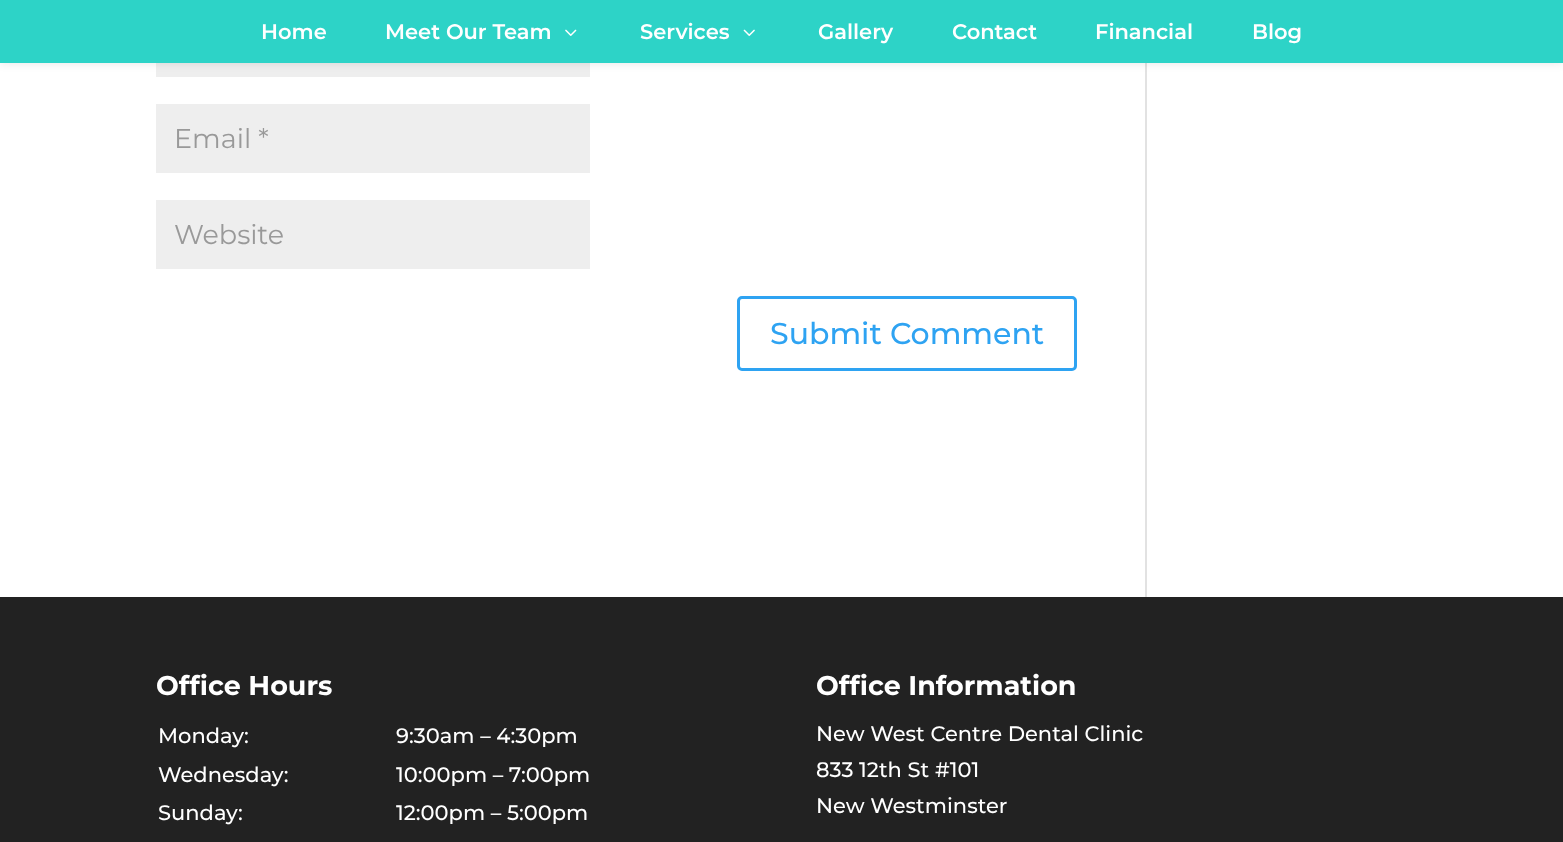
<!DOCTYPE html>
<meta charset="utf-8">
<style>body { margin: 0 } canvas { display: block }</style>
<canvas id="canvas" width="1563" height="842"></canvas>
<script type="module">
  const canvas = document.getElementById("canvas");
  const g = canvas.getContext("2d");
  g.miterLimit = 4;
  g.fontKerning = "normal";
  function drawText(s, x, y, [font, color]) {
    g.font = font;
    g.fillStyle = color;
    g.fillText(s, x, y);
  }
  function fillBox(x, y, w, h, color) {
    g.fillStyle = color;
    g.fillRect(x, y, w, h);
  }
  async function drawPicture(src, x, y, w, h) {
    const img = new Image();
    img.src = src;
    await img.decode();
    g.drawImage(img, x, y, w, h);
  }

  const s1 = ["100 21px 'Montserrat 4'", "#FFFFFF"];
  const s2 = ["100 27px Montserrat", "#999999"];
  const s3 = ["100 30px 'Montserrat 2'", "#2EA3F2"];
  const s4 = ["100 27px 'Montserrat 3'", "#FFFFFF"];
  const s5 = ["100 21px 'Montserrat 2'", "#FFFFFF"];

  fillBox(0, 0, 1563, 842, "#FFFFFF");
  fillBox(156, 63, 434, 14, "#EEEEEE");
  fillBox(1145, 63, 2, 534, "#E2E2E2");
  g.fillStyle = "rgba(0, 0, 0, 0.1)";
  g.filter = "blur(5px)";
  g.beginPath();
  g.rect(0, 0, 1563, 63);
  g.fill();
  g.filter = "none";
  fillBox(0, 0, 1563, 63, "#2DD3C7");
  drawText("Home", 261, 39, s1);
  drawText("Meet Our Team", 385, 39, s1);
  await drawPicture("pic1.png", 565, 29, 12, 7);
  drawText("Services", 640, 39, s1);
  await drawPicture("pic2.png", 743, 29, 12, 7);
  drawText("Gallery", 818, 39, s1);
  drawText("Contact", 952, 39, s1);
  drawText("Financial", 1095, 39, s1);
  drawText("Blog", 1252, 39, s1);
  fillBox(156, 104, 434, 69, "#EEEEEE");
  drawText("Email *", 174, 148, s2);
  fillBox(156, 200, 434, 69, "#EEEEEE");
  drawText("Website", 174, 244, s2);
  g.beginPath();
  g.roundRect(738.5, 297.5, 337, 72, 3.5);
  g.strokeStyle = "#2EA3F2";
  g.lineWidth = 3;
  g.stroke();
  drawText("Submit Comment", 770, 344, s3);
  fillBox(0, 597, 1563, 245, "#222222");
  drawText("Office Hours", 156, 695, s4);
  drawText("Monday:", 158, 743, s5);
  drawText("9:30am – 4:30pm", 396, 743, s5);
  drawText("Wednesday:", 158, 782, s5);
  drawText("10:00pm – 7:00pm", 396, 782, s5);
  drawText("Sunday:", 158, 820, s5);
  drawText("12:00pm – 5:00pm", 396, 820, s5);
  drawText("Office Information", 816, 695, s4);
  drawText("New West Centre Dental Clinic", 816, 741, s5);
  drawText("833 12th St #101", 816, 777, s5);
  drawText("New Westminster", 816, 813, s5);
</script>
